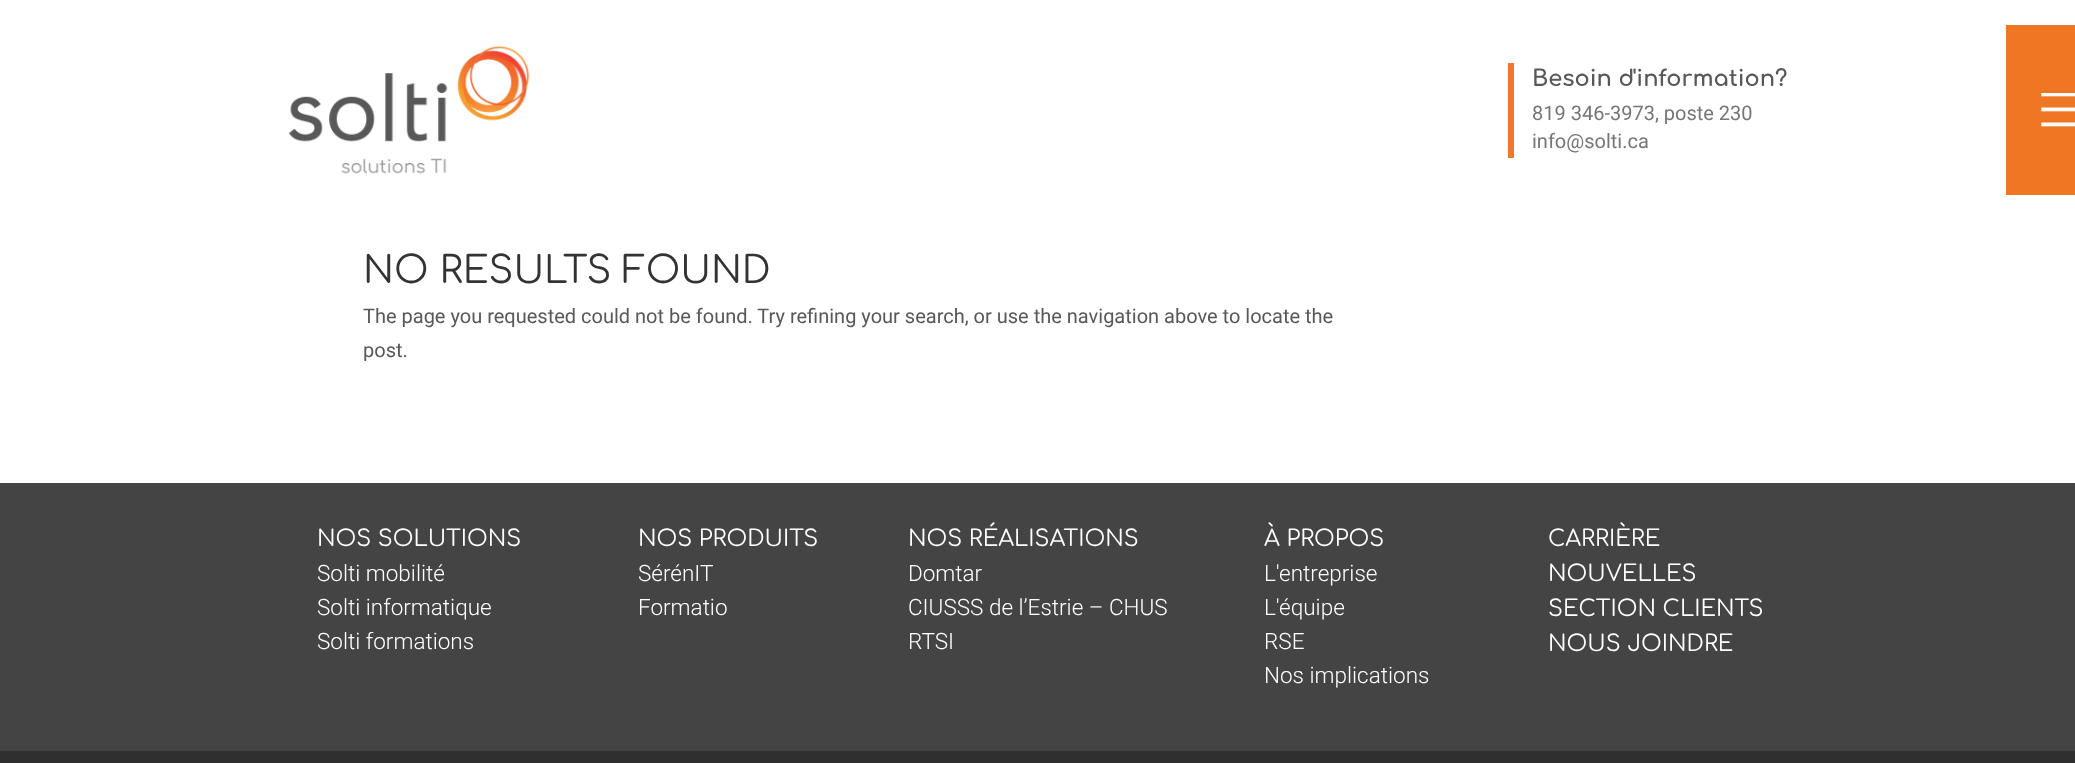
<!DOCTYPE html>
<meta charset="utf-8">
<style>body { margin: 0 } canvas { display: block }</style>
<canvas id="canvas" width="2075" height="763"></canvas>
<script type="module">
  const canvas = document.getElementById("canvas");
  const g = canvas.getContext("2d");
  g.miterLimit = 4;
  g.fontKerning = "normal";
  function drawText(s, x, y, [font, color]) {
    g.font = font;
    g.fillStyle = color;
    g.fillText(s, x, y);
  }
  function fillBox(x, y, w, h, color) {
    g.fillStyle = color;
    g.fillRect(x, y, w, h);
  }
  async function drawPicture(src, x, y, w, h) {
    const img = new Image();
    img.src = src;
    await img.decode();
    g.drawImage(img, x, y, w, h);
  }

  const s1 = ["bold 22.5px Comfortaa", "#58585A"];
  const s2 = ["20px Roboto", "#767676"];
  const s3 = ["37.5px Comfortaa", "#333333"];
  const s4 = ["20px Roboto", "#58585A"];
  const s5 = ["22.5px Comfortaa", "#FFFFFF"];
  const s6 = ["300 22.5px Roboto", "#FFFFFF"];

  fillBox(0, 0, 2075, 763, "#FFFFFF");
  await drawPicture("pic1.png", 288, 46, 242, 128);
  fillBox(1508, 63, 6, 95, "#F2762C");
  drawText("Besoin d'information?", 1532, 86, s1);
  drawText("819 346-3973, poste 230", 1532, 120, s2);
  drawText("info@solti.ca", 1532, 148, s2);
  fillBox(2006, 25, 69, 170, "#EF7622");
  await drawPicture("pic2.png", 2041, 93, 34, 34);
  drawText("NO RESULTS FOUND", 363, 283, s3);
  drawText("The page you requested could not be found. Try refining your search, or use the navigation above to locate the", 363, 323, s4);
  drawText("post.", 363, 357, s4);
  fillBox(0, 483, 2075, 268, "#444444");
  drawText("NOS SOLUTIONS", 317, 546, s5);
  drawText("Solti mobilité", 317, 581, s6);
  drawText("Solti informatique", 317, 615, s6);
  drawText("Solti formations", 317, 649, s6);
  drawText("NOS PRODUITS", 638, 546, s5);
  drawText("SérénIT", 638, 581, s6);
  drawText("Formatio", 638, 615, s6);
  drawText("NOS RÉALISATIONS", 908, 546, s5);
  drawText("Domtar", 908, 581, s6);
  drawText("CIUSSS de l’Estrie – CHUS", 908, 615, s6);
  drawText("RTSI", 908, 649, s6);
  drawText("À PROPOS", 1264, 546, s5);
  drawText("L'entreprise", 1264, 581, s6);
  drawText("L'équipe", 1264, 615, s6);
  drawText("RSE", 1264, 649, s6);
  drawText("Nos implications", 1264, 683, s6);
  drawText("CARRIÈRE", 1548, 546, s5);
  drawText("NOUVELLES", 1548, 581, s5);
  drawText("SECTION CLIENTS", 1548, 616, s5);
  drawText("NOUS JOINDRE", 1548, 651, s5);
  fillBox(0, 751, 2075, 12, "#2F2F2F");
</script>
